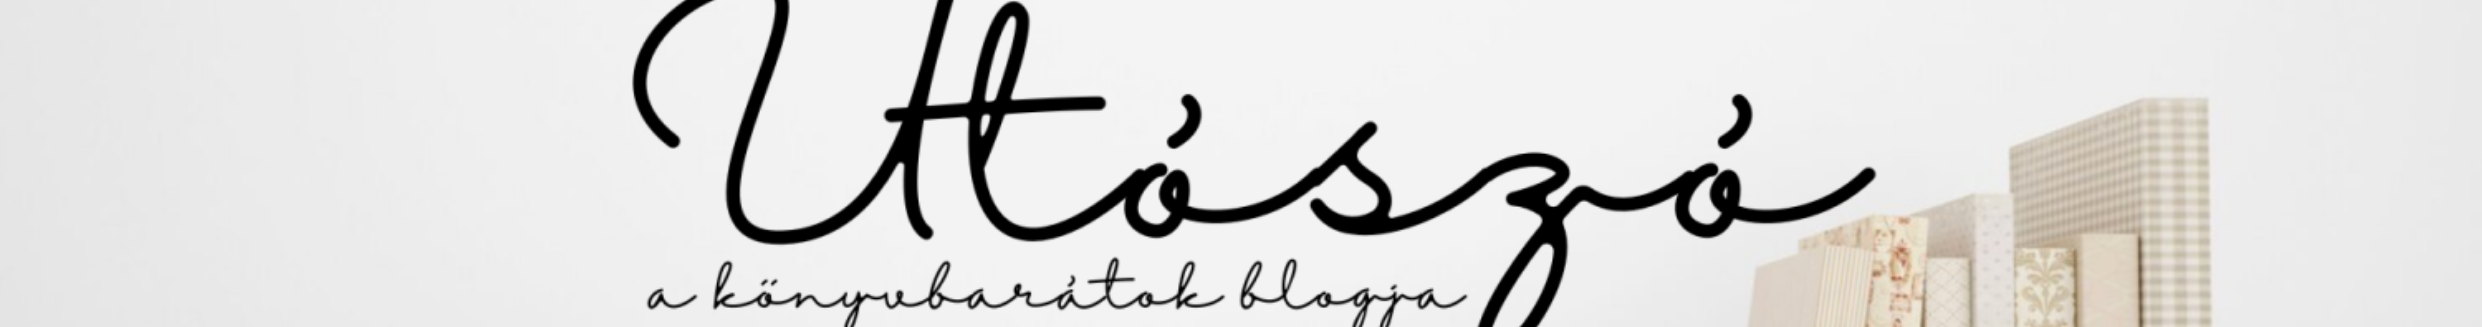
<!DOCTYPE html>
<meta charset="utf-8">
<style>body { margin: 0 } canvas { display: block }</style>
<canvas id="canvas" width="2482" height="327"></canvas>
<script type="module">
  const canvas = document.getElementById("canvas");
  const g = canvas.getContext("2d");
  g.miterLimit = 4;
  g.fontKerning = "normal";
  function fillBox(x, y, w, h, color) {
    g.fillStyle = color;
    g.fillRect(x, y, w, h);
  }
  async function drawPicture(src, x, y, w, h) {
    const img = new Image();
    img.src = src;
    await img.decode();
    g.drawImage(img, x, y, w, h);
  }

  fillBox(0, 0, 2482, 327, "#FFFFFF");
  await drawPicture("pic1.png", 0, 0, 2482, 327);
</script>
